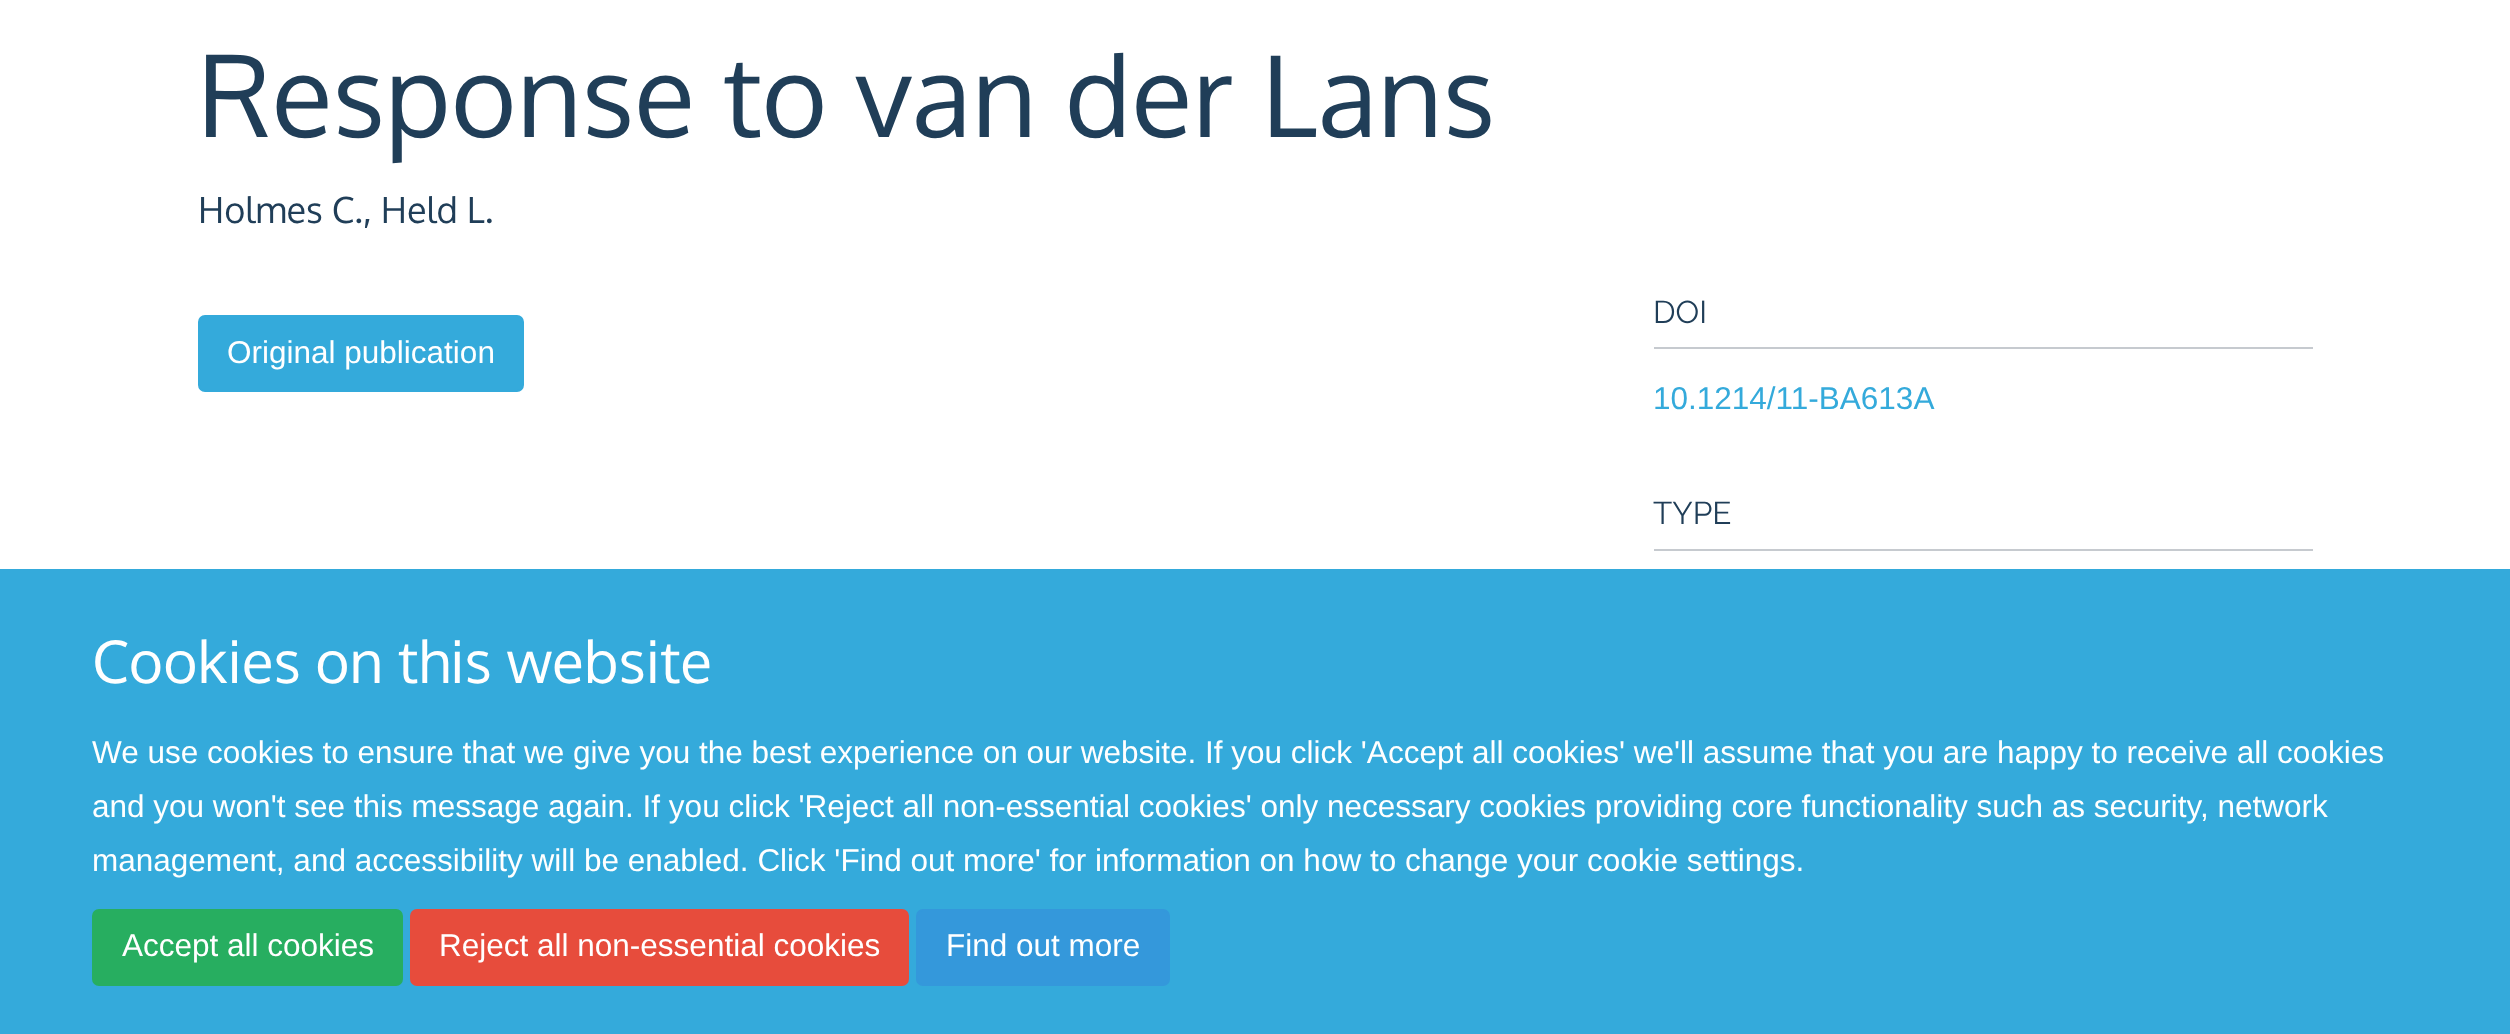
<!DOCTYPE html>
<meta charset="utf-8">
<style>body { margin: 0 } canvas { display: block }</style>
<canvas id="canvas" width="2510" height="1034"></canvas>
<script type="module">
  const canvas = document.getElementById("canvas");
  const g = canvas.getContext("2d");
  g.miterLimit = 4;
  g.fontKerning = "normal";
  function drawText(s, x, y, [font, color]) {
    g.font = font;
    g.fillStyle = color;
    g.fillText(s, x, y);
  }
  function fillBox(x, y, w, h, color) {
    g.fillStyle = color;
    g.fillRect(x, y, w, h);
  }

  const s1 = ["112.5px Oxygen", "#203E58"];
  const s2 = ["36px Oxygen", "#203E58"];
  const s3 = ["31.5px Liberation Sans", "#FFFFFF"];
  const s4 = ["100 31.5px Raleway", "#203E58"];
  const s5 = ["31.5px Liberation Sans", "#34AADB"];
  const s6 = ["58.5px Oxygen", "#FFFFFF"];

  fillBox(0, 0, 2510, 1034, "#FFFFFF");
  drawText("Response to van der Lans", 198, 137, s1);
  drawText("Holmes C., Held L.", 198, 223, s2);
  g.fillStyle = "#34AADB";
  g.beginPath();
  g.roundRect(199, 316, 324, 75, 6);
  g.fill();
  g.strokeStyle = "#34AADB";
  g.lineWidth = 2;
  g.stroke();
  drawText("Original publication", 227, 363, s3);
  fillBox(1654, 347, 659, 2, "#C6CACF");
  drawText("DOI", 1653, 323, s4);
  drawText("10.1214/11-BA613A", 1653, 409, s5);
  fillBox(1654, 549, 659, 2, "#C6CACF");
  drawText("TYPE", 1653, 524, s4);
  fillBox(0, 569, 2510, 465, "#34AADB");
  drawText("Cookies on this website", 92, 683, s6);
  drawText("We use cookies to ensure that we give you the best experience on our website. If you click 'Accept all cookies' we'll assume that you are happy to receive all cookies", 92, 763, s3);
  drawText("and you won't see this message again. If you click 'Reject all non-essential cookies' only necessary cookies providing core functionality such as security, network", 92, 817, s3);
  drawText("management, and accessibility will be enabled. Click 'Find out more' for information on how to change your cookie settings.", 92, 871, s3);
  g.fillStyle = "#27AE60";
  g.beginPath();
  g.roundRect(93, 910, 309, 75, 6);
  g.fill();
  g.strokeStyle = "#27AE60";
  g.stroke();
  drawText("Accept all cookies", 122, 956, s3);
  g.fillStyle = "#E74C3C";
  g.beginPath();
  g.roundRect(411, 910, 497, 75, 6);
  g.fill();
  g.strokeStyle = "#E74C3C";
  g.stroke();
  drawText("Reject all non-essential cookies", 439, 956, s3);
  g.fillStyle = "#3498DB";
  g.beginPath();
  g.roundRect(917, 910, 252, 75, 6);
  g.fill();
  g.strokeStyle = "#3498DB";
  g.stroke();
  drawText("Find out more", 946, 956, s3);
</script>
